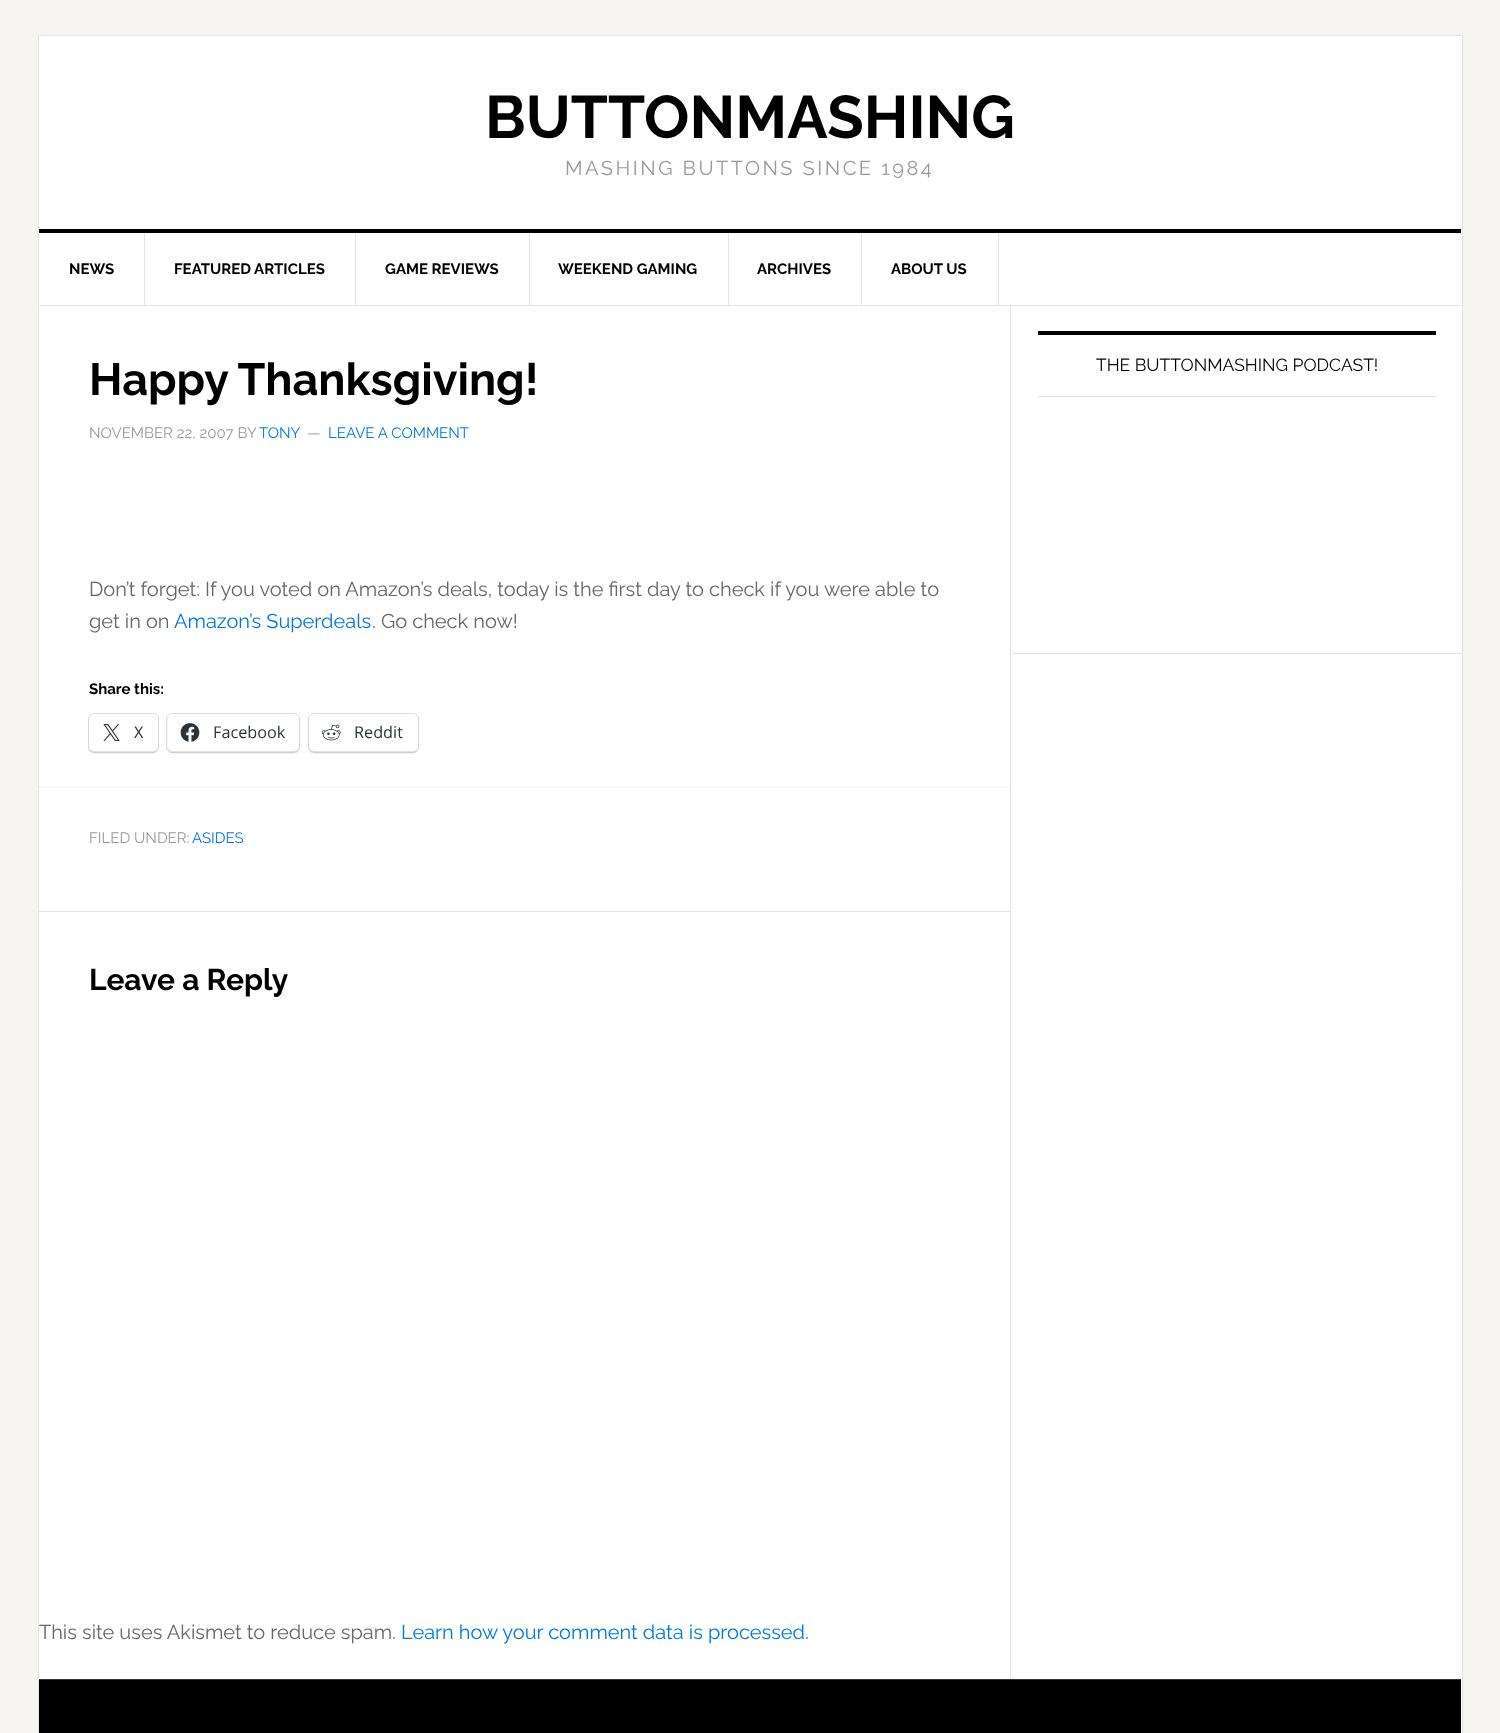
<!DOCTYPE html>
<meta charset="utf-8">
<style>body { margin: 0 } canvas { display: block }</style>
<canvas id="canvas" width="1500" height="1733"></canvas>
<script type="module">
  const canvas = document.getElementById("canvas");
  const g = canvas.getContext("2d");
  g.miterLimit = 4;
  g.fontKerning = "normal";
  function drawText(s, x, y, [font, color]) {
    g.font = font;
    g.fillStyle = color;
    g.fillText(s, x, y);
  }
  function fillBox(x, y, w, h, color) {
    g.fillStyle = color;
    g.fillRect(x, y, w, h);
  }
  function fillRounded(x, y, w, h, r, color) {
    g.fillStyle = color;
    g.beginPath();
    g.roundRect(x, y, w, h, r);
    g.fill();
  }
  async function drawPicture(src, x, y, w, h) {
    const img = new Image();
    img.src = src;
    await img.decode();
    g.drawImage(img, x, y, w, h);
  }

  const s1 = ["bold 60px Raleway", "#000000"];
  const s2 = ["20px Raleway", "#999999"];
  const s3 = ["bold 15px Raleway", "#000000"];
  const s4 = ["bold 45px Raleway", "#000000"];
  const s5 = ["15px Raleway", "#999999"];
  const s6 = ["15px Raleway", "#0077E0"];
  const s7 = ["20px Raleway", "#666666"];
  const s8 = ["20px Raleway", "#0077E0"];
  const s9 = ["16.25px Open Sans", "#2C3338"];
  const s10 = ["bold 30px Raleway", "#000000"];
  const s11 = ["17.5px Raleway", "#000000"];

  fillBox(0, 0, 1500, 1733, "#F6F5F2");
  g.fillStyle = "#FFFFFF";
  g.beginPath();
  g.rect(38.5, 35.5, 1424, 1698);
  g.fill();
  g.strokeStyle = "#E3E3E3";
  g.stroke();
  fillBox(39, 229, 1422, 4, "#000000");
  drawText("BUTTONMASHING", 485, 138, s1);
  g.letterSpacing = "2.5px";
  drawText("MASHING BUTTONS SINCE 1984", 565, 175, s2);
  fillBox(39, 305, 1422, 1, "#E3E3E3");
  fillBox(144, 233, 1, 72, "#E3E3E3");
  g.letterSpacing = "0px";
  drawText("NEWS", 69, 274, s3);
  fillBox(355, 233, 1, 72, "#E3E3E3");
  drawText("FEATURED ARTICLES", 174, 274, s3);
  fillBox(529, 233, 1, 72, "#E3E3E3");
  drawText("GAME REVIEWS", 385, 274, s3);
  fillBox(728, 233, 1, 72, "#E3E3E3");
  drawText("WEEKEND GAMING", 558, 274, s3);
  fillBox(861, 233, 1, 72, "#E3E3E3");
  drawText("ARCHIVES", 757, 274, s3);
  fillBox(998, 233, 1, 72, "#E3E3E3");
  drawText("ABOUT US", 891, 274, s3);
  fillBox(1010, 306, 1, 1373, "#E3E3E3");
  fillBox(39, 911, 971, 1, "#E3E3E3");
  drawText("Happy Thanksgiving!", 89, 395, s4);
  drawText("NOVEMBER 22, 2007 BY", 89, 438, s5);
  drawText("TONY", 259, 438, s6);
  drawText("—", 307, 438, s5);
  drawText("LEAVE A COMMENT", 328, 438, s6);
  drawText("Don’t forget: If you voted on Amazon’s deals, today is the first day to check if you were able to", 89, 596, s7);
  drawText("get in on", 89, 628, s7);
  drawText("Amazon’s Superdeals", 174, 628, s8);
  drawText(". Go check now!", 372, 628, s7);
  drawText("Share this:", 89, 694, s3);
  g.beginPath();
  g.roundRect(88.5, 713.5, 70, 39, 5.5);
  g.strokeStyle = "#E0E0E0";
  g.stroke();
  g.fillStyle = "rgba(0, 0, 0, 0.12)";
  g.filter = "blur(1px)";
  g.beginPath();
  g.roundRect(89, 715, 69, 38, 5);
  g.fill();
  g.filter = "none";
  fillRounded(89, 714, 69, 37, 5, "#FFFFFF");
  await drawPicture("pic1.png", 103, 724, 17, 17);
  drawText("X", 134, 738, s9);
  g.beginPath();
  g.roundRect(166.5, 713.5, 133, 39, 5.5);
  g.stroke();
  g.fillStyle = "rgba(0, 0, 0, 0.12)";
  g.filter = "blur(1px)";
  g.beginPath();
  g.roundRect(168, 715, 131, 38, 5);
  g.fill();
  g.filter = "none";
  fillRounded(168, 714, 131, 37, 5, "#FFFFFF");
  await drawPicture("pic2.png", 180, 723, 20, 19);
  drawText("Facebook", 213, 738, s9);
  g.beginPath();
  g.roundRect(308.5, 713.5, 110, 39, 5.5);
  g.stroke();
  g.fillStyle = "rgba(0, 0, 0, 0.12)";
  g.filter = "blur(1px)";
  g.beginPath();
  g.roundRect(309, 715, 109, 38, 5);
  g.fill();
  g.filter = "none";
  fillRounded(309, 714, 109, 37, 5, "#FFFFFF");
  await drawPicture("pic3.png", 321, 724, 20, 17);
  drawText("Reddit", 354, 738, s9);
  g.beginPath();
  g.moveTo(39, 787);
  g.lineTo(1010, 787);
  g.strokeStyle = "#E3E3E3";
  g.lineWidth = 1.2;
  g.setLineDash([1.25, 1.25]);
  g.stroke();
  drawText("FILED UNDER:", 89, 843, s5);
  drawText("ASIDES", 192, 843, s6);
  drawText("Leave a Reply", 89, 990, s10);
  drawText("This site uses Akismet to reduce spam.", 39, 1639, s7);
  drawText("Learn how your comment data is processed.", 401, 1639, s8);
  fillBox(1013, 653, 448, 1, "#E3E3E3");
  fillBox(1038, 331, 398, 4, "#000000");
  fillBox(1038, 396, 398, 1, "#E3E3E3");
  drawText("THE BUTTONMASHING PODCAST!", 1096, 371, s11);
  fillBox(39, 1680, 1422, 53, "#000000");
  fillBox(39, 1679, 1422, 1, "#333333");
</script>
